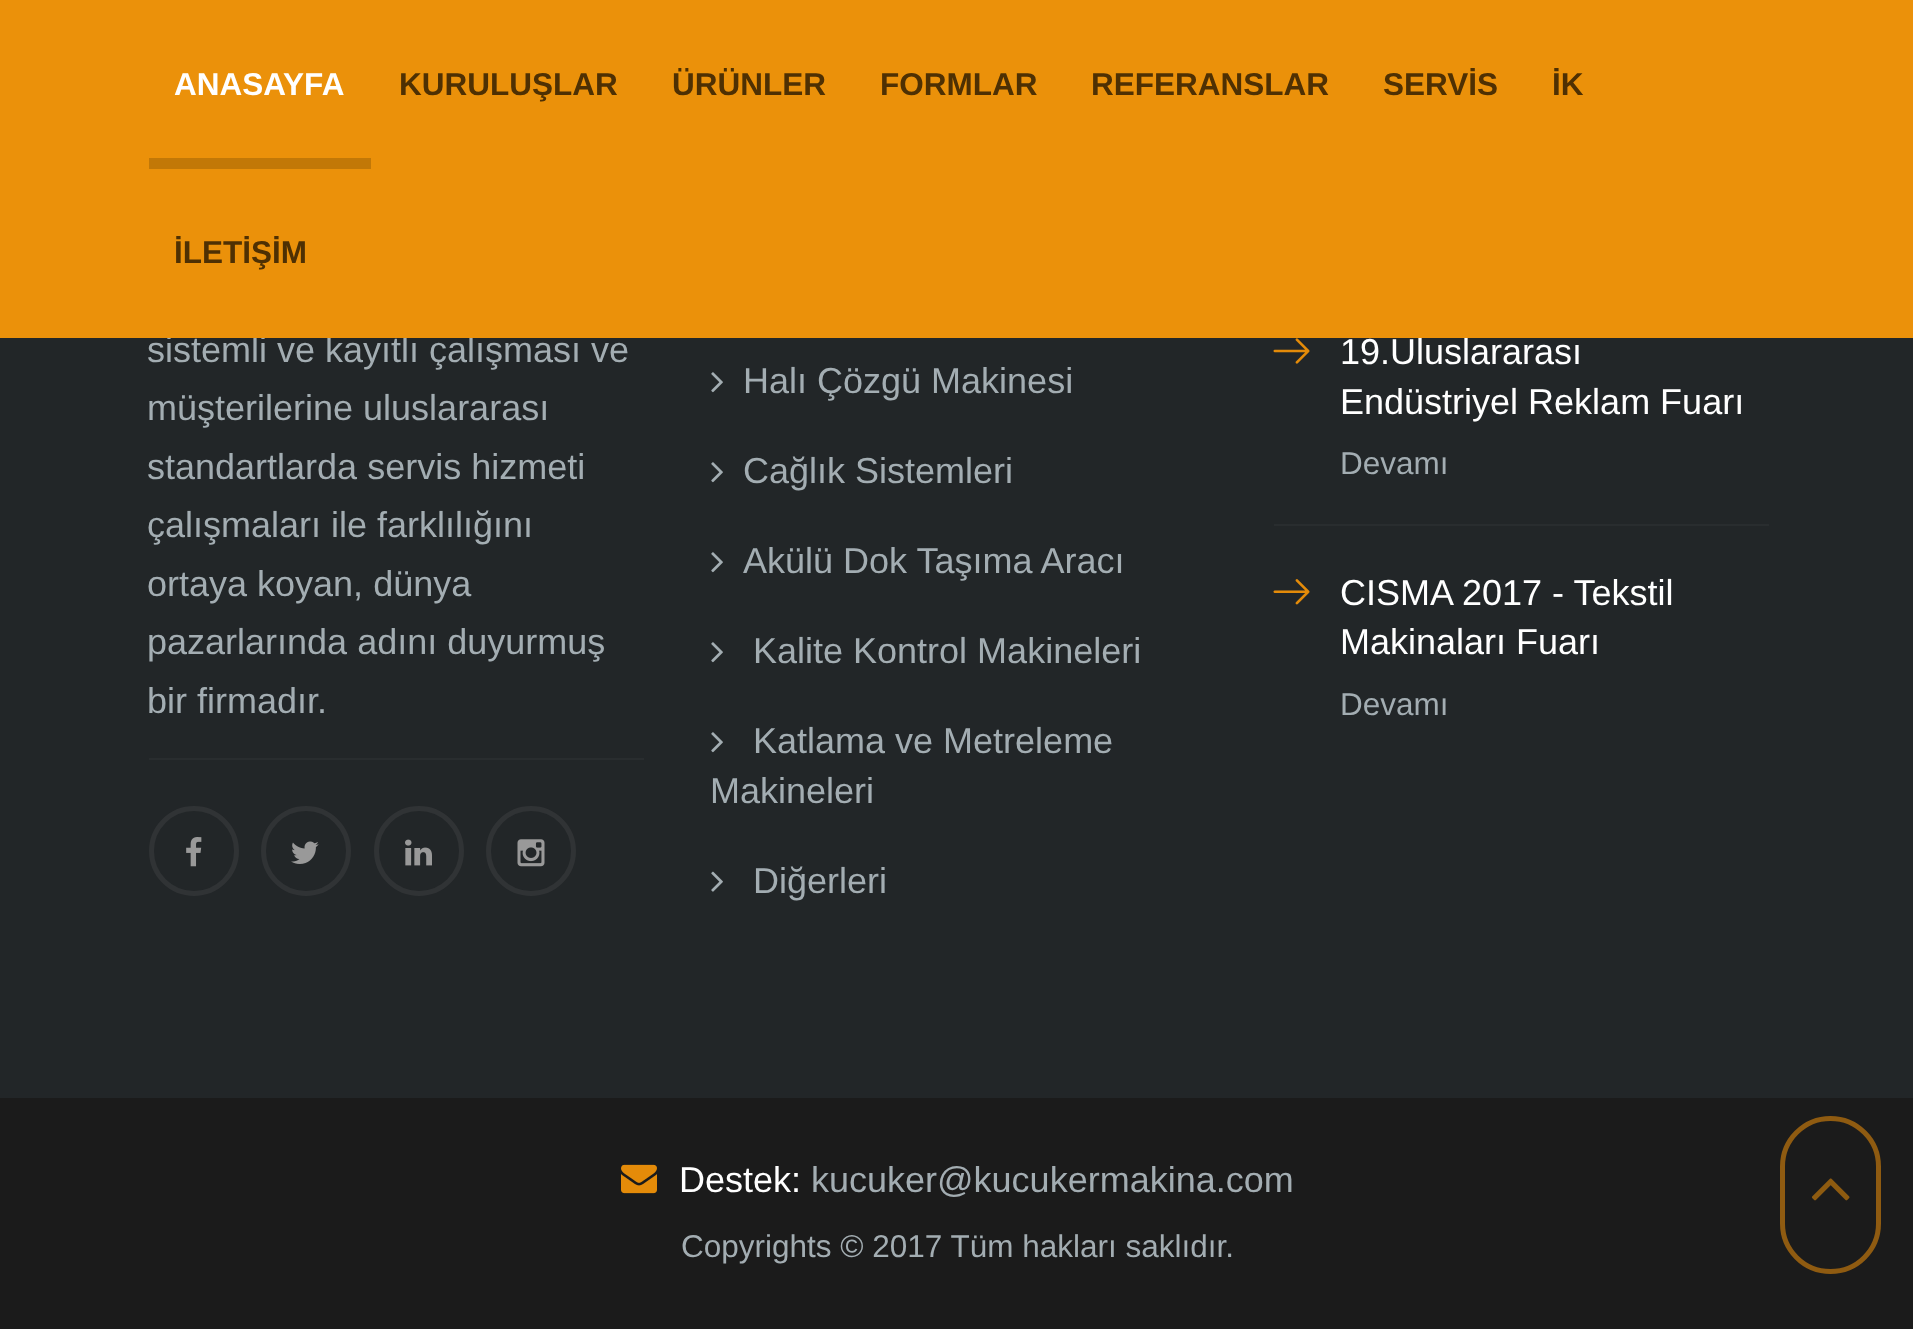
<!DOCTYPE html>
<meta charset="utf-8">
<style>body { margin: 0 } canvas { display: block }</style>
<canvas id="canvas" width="1913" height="1329"></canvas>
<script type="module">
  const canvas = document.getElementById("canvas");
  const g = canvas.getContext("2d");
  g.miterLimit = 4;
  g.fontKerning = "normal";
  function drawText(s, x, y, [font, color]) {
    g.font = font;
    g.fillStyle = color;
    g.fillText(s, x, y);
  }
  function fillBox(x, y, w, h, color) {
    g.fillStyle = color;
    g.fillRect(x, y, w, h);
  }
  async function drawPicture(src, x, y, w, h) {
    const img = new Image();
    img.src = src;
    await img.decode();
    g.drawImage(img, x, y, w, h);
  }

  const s1 = ["36px Liberation Sans", "#A3ADB2"];
  const s2 = ["36px Liberation Sans", "#FFFFFF"];
  const s3 = ["bold 31.5px Liberation Sans", "#FFFFFF"];
  const s4 = ["bold 31.5px Liberation Sans", "#4E3003"];
  const s5 = ["31.5px Liberation Sans", "#A3ADB2"];

  fillBox(0, 0, 1913, 1329, "#222628");
  drawText("sistemli ve kayıtlı çalışması ve", 147, 362, s1);
  drawText("19.Uluslararası", 1340, 364, s2);
  fillBox(0, 0, 1913, 338, "#EB910A");
  drawText("ANASAYFA", 174, 95, s3);
  fillBox(149, 158, 222, 11, "#C27807");
  drawText("KURULUŞLAR", 399, 95, s4);
  drawText("ÜRÜNLER", 672, 95, s4);
  drawText("FORMLAR", 880, 95, s4);
  drawText("REFERANSLAR", 1091, 95, s4);
  drawText("SERVİS", 1383, 95, s4);
  drawText("İK", 1552, 95, s4);
  drawText("İLETİŞİM", 174, 263, s4);
  drawText("müşterilerine uluslararası", 147, 420, s1);
  drawText("standartlarda servis hizmeti", 147, 479, s1);
  drawText("çalışmaları ile farklılığını", 147, 537, s1);
  drawText("ortaya koyan, dünya", 147, 596, s1);
  drawText("pazarlarında adını duyurmuş", 147, 654, s1);
  drawText("bir firmadır.", 147, 713, s1);
  fillBox(149, 758, 495, 2, "#292D2F");
  g.beginPath();
  g.arc(194, 851, 42.5, 0, Math.PI * 2);
  g.strokeStyle = "#303335";
  g.lineWidth = 5;
  g.stroke();
  await drawPicture("pic1.png", 186, 837, 16, 30);
  g.beginPath();
  g.arc(306, 851, 42.5, 0, Math.PI * 2);
  g.stroke();
  await drawPicture("pic2.png", 291, 841, 28, 23);
  g.beginPath();
  g.arc(419, 851, 42.5, 0, Math.PI * 2);
  g.stroke();
  await drawPicture("pic3.png", 405, 839, 27, 27);
  g.beginPath();
  g.arc(531, 851, 42.5, 0, Math.PI * 2);
  g.stroke();
  await drawPicture("pic4.png", 517, 839, 28, 28);
  await drawPicture("pic5.png", 711, 372, 12, 21);
  drawText("Halı Çözgü Makinesi", 743, 393, s1);
  await drawPicture("pic5.png", 711, 462, 12, 21);
  drawText("Cağlık Sistemleri", 743, 483, s1);
  await drawPicture("pic5.png", 711, 552, 12, 21);
  drawText("Akülü Dok Taşıma Aracı", 743, 573, s1);
  await drawPicture("pic5.png", 711, 642, 12, 21);
  drawText("Kalite Kontrol Makineleri", 753, 663, s1);
  await drawPicture("pic5.png", 711, 732, 12, 21);
  drawText("Katlama ve Metreleme", 753, 753, s1);
  drawText("Makineleri", 710, 803, s1);
  await drawPicture("pic6.png", 711, 871, 12, 21);
  drawText("Diğerleri", 753, 893, s1);
  fillBox(1274, 524, 495, 2, "#292D2F");
  await drawPicture("pic7.png", 1273, 338, 37, 26);
  drawText("Endüstriyel Reklam Fuarı", 1340, 414, s2);
  drawText("Devamı", 1340, 474, s5);
  await drawPicture("pic8.png", 1273, 579, 37, 26);
  drawText("CISMA 2017 - Tekstil", 1340, 605, s2);
  drawText("Makinaları Fuarı", 1340, 654, s2);
  drawText("Devamı", 1340, 715, s5);
  fillBox(0, 1098, 1913, 231, "#1B1B1B");
  await drawPicture("pic9.png", 621, 1164, 36, 30);
  drawText("Destek:", 679, 1192, s2);
  drawText("kucuker@kucukermakina.com", 811, 1192, s1);
  drawText("Copyrights © 2017 Tüm hakları saklıdır.", 681, 1257, s5);
  g.beginPath();
  g.roundRect(1782.5, 1118.5, 96, 153, 48);
  g.strokeStyle = "#8F5B11";
  g.stroke();
  await drawPicture("pic10.png", 1811, 1178, 39, 23);
</script>
